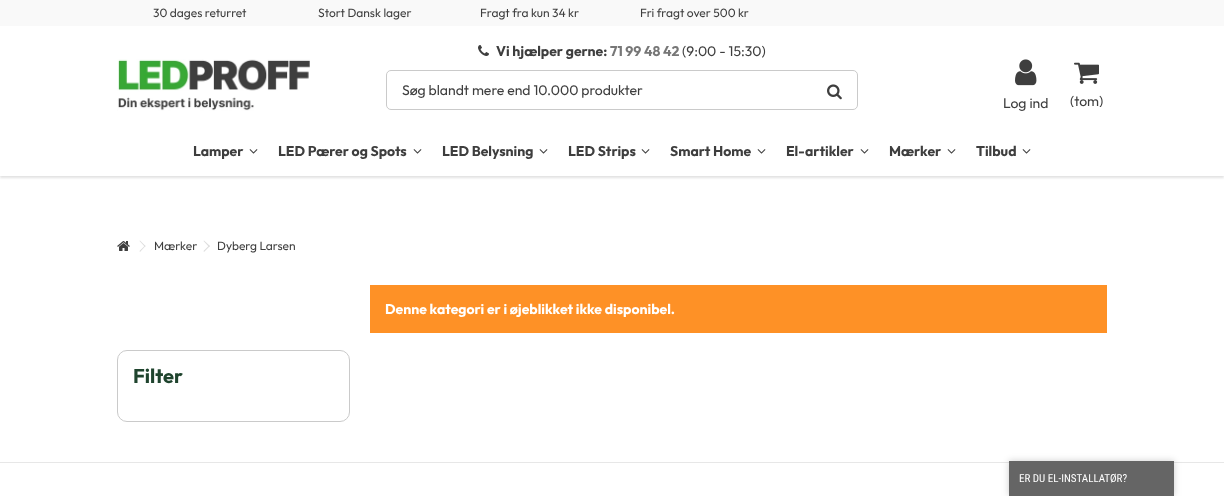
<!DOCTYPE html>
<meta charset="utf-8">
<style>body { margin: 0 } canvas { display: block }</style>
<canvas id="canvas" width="1224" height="496"></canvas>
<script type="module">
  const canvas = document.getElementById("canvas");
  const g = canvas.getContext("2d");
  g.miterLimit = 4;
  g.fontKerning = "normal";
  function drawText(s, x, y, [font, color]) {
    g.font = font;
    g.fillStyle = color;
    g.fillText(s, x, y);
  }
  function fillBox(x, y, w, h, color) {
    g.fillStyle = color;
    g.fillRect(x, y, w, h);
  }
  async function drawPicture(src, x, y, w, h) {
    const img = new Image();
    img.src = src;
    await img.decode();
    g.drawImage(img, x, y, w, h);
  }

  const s1 = ["12px Outfit", "#3E3E3E"];
  const s2 = ["bold 14px Outfit", "#3E3E3E"];
  const s3 = ["bold 14px Outfit", "#777777"];
  const s4 = ["14px Outfit", "#3E3E3E"];
  const s5 = ["bold 14px Outfit", "#FFFFFF"];
  const s6 = ["bold 20px Outfit", "#1F442E"];
  const s7 = ["11px Roboto Condensed", "#FFFFFF"];

  fillBox(0, 0, 1224, 496, "#FFFFFF");
  fillBox(0, 0, 1224, 26, "#F9F9F9");
  drawText("30 dages returret", 153, 17, s1);
  drawText("Stort Dansk lager", 318, 17, s1);
  drawText("Fragt fra kun 34 kr", 480, 17, s1);
  drawText("Fri fragt over 500 kr", 640, 17, s1);
  await drawPicture("pic1.png", 117, 59, 193, 52);
  await drawPicture("pic2.png", 478, 45, 11, 11);
  drawText("Vi hjælper gerne:", 496, 56, s2);
  drawText("71 99 48 42", 610, 56, s3);
  drawText("(9:00 - 15:30)", 682, 56, s4);
  g.beginPath();
  g.roundRect(386.5, 70.5, 471, 39, 4.5);
  g.strokeStyle = "#CACACA";
  g.stroke();
  drawText("Søg blandt mere end 10.000 produkter", 402, 95, s4);
  await drawPicture("pic3.png", 827, 84, 15, 16);
  await drawPicture("pic4.png", 1015, 59, 22, 27);
  drawText("Log ind", 1003, 108, s4);
  await drawPicture("pic5.png", 1074, 62, 25, 22);
  g.save();
  g.beginPath();
  g.rect(1056, 56, 61, 51);
  g.clip();
  drawText("(tom)", 1070, 106, s4);
  g.restore();
  g.save();
  g.beginPath();
  g.rect(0, 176, 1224, 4);
  g.clip();
  g.fillStyle = "#E2E2E2";
  g.filter = "blur(1px)";
  g.beginPath();
  g.rect(0, 128, 1224, 50);
  g.fill();
  g.filter = "none";
  g.restore();
  drawText("Lamper", 193, 156, s2);
  await drawPicture("pic6.png", 249, 149, 9, 5);
  drawText("LED Pærer og Spots", 278, 156, s2);
  await drawPicture("pic6.png", 413, 149, 9, 5);
  drawText("LED Belysning", 442, 156, s2);
  await drawPicture("pic6.png", 539, 149, 9, 5);
  drawText("LED Strips", 568, 156, s2);
  await drawPicture("pic6.png", 641, 149, 9, 5);
  drawText("Smart Home", 670, 156, s2);
  await drawPicture("pic6.png", 757, 149, 9, 5);
  drawText("El-artikler", 786, 156, s2);
  await drawPicture("pic6.png", 860, 149, 9, 5);
  drawText("Mærker", 889, 156, s2);
  await drawPicture("pic6.png", 947, 149, 9, 5);
  drawText("Tilbud", 976, 156, s2);
  await drawPicture("pic6.png", 1022, 149, 9, 5);
  await drawPicture("pic7.png", 117, 241, 13, 10);
  g.fillStyle = "#DDDDDD";
  g.beginPath();
  g.moveTo(140, 240.5);
  g.lineTo(145.5, 246);
  g.lineTo(145, 247);
  g.lineTo(139.5, 241);
  g.closePath();
  g.fill();
  g.beginPath();
  g.moveTo(145, 245.5);
  g.lineTo(145.5, 246);
  g.lineTo(140, 252);
  g.lineTo(139.5, 251);
  g.closePath();
  g.fill();
  drawText("Mærker", 154, 250, s1);
  g.fillStyle = "#DDDDDD";
  g.beginPath();
  g.moveTo(204, 240.5);
  g.lineTo(210, 246);
  g.lineTo(209, 247);
  g.lineTo(203.5, 241);
  g.closePath();
  g.fill();
  g.beginPath();
  g.moveTo(209, 245.5);
  g.lineTo(210, 246);
  g.lineTo(204, 252);
  g.lineTo(203.5, 251);
  g.closePath();
  g.fill();
  drawText("Dyberg Larsen", 217, 250, s1);
  fillBox(370, 285, 737, 48, "#FE9126");
  drawText("Denne kategori er i øjeblikket ikke disponibel.", 385, 314, s5);
  g.beginPath();
  g.roundRect(117.5, 350.5, 232, 71, 9.5);
  g.stroke();
  drawText("Filter", 133, 383, s6);
  fillBox(0, 462, 1224, 1, "#E7E7E7");
  g.fillStyle = "rgba(0, 0, 0, 0.2)";
  g.filter = "blur(3.5px)";
  g.beginPath();
  g.rect(1009, 461, 165, 35);
  g.fill();
  g.filter = "none";
  fillBox(1009, 461, 165, 35, "#656565");
  drawText("ER DU EL-INSTALLATØR?", 1019, 482, s7);
</script>
